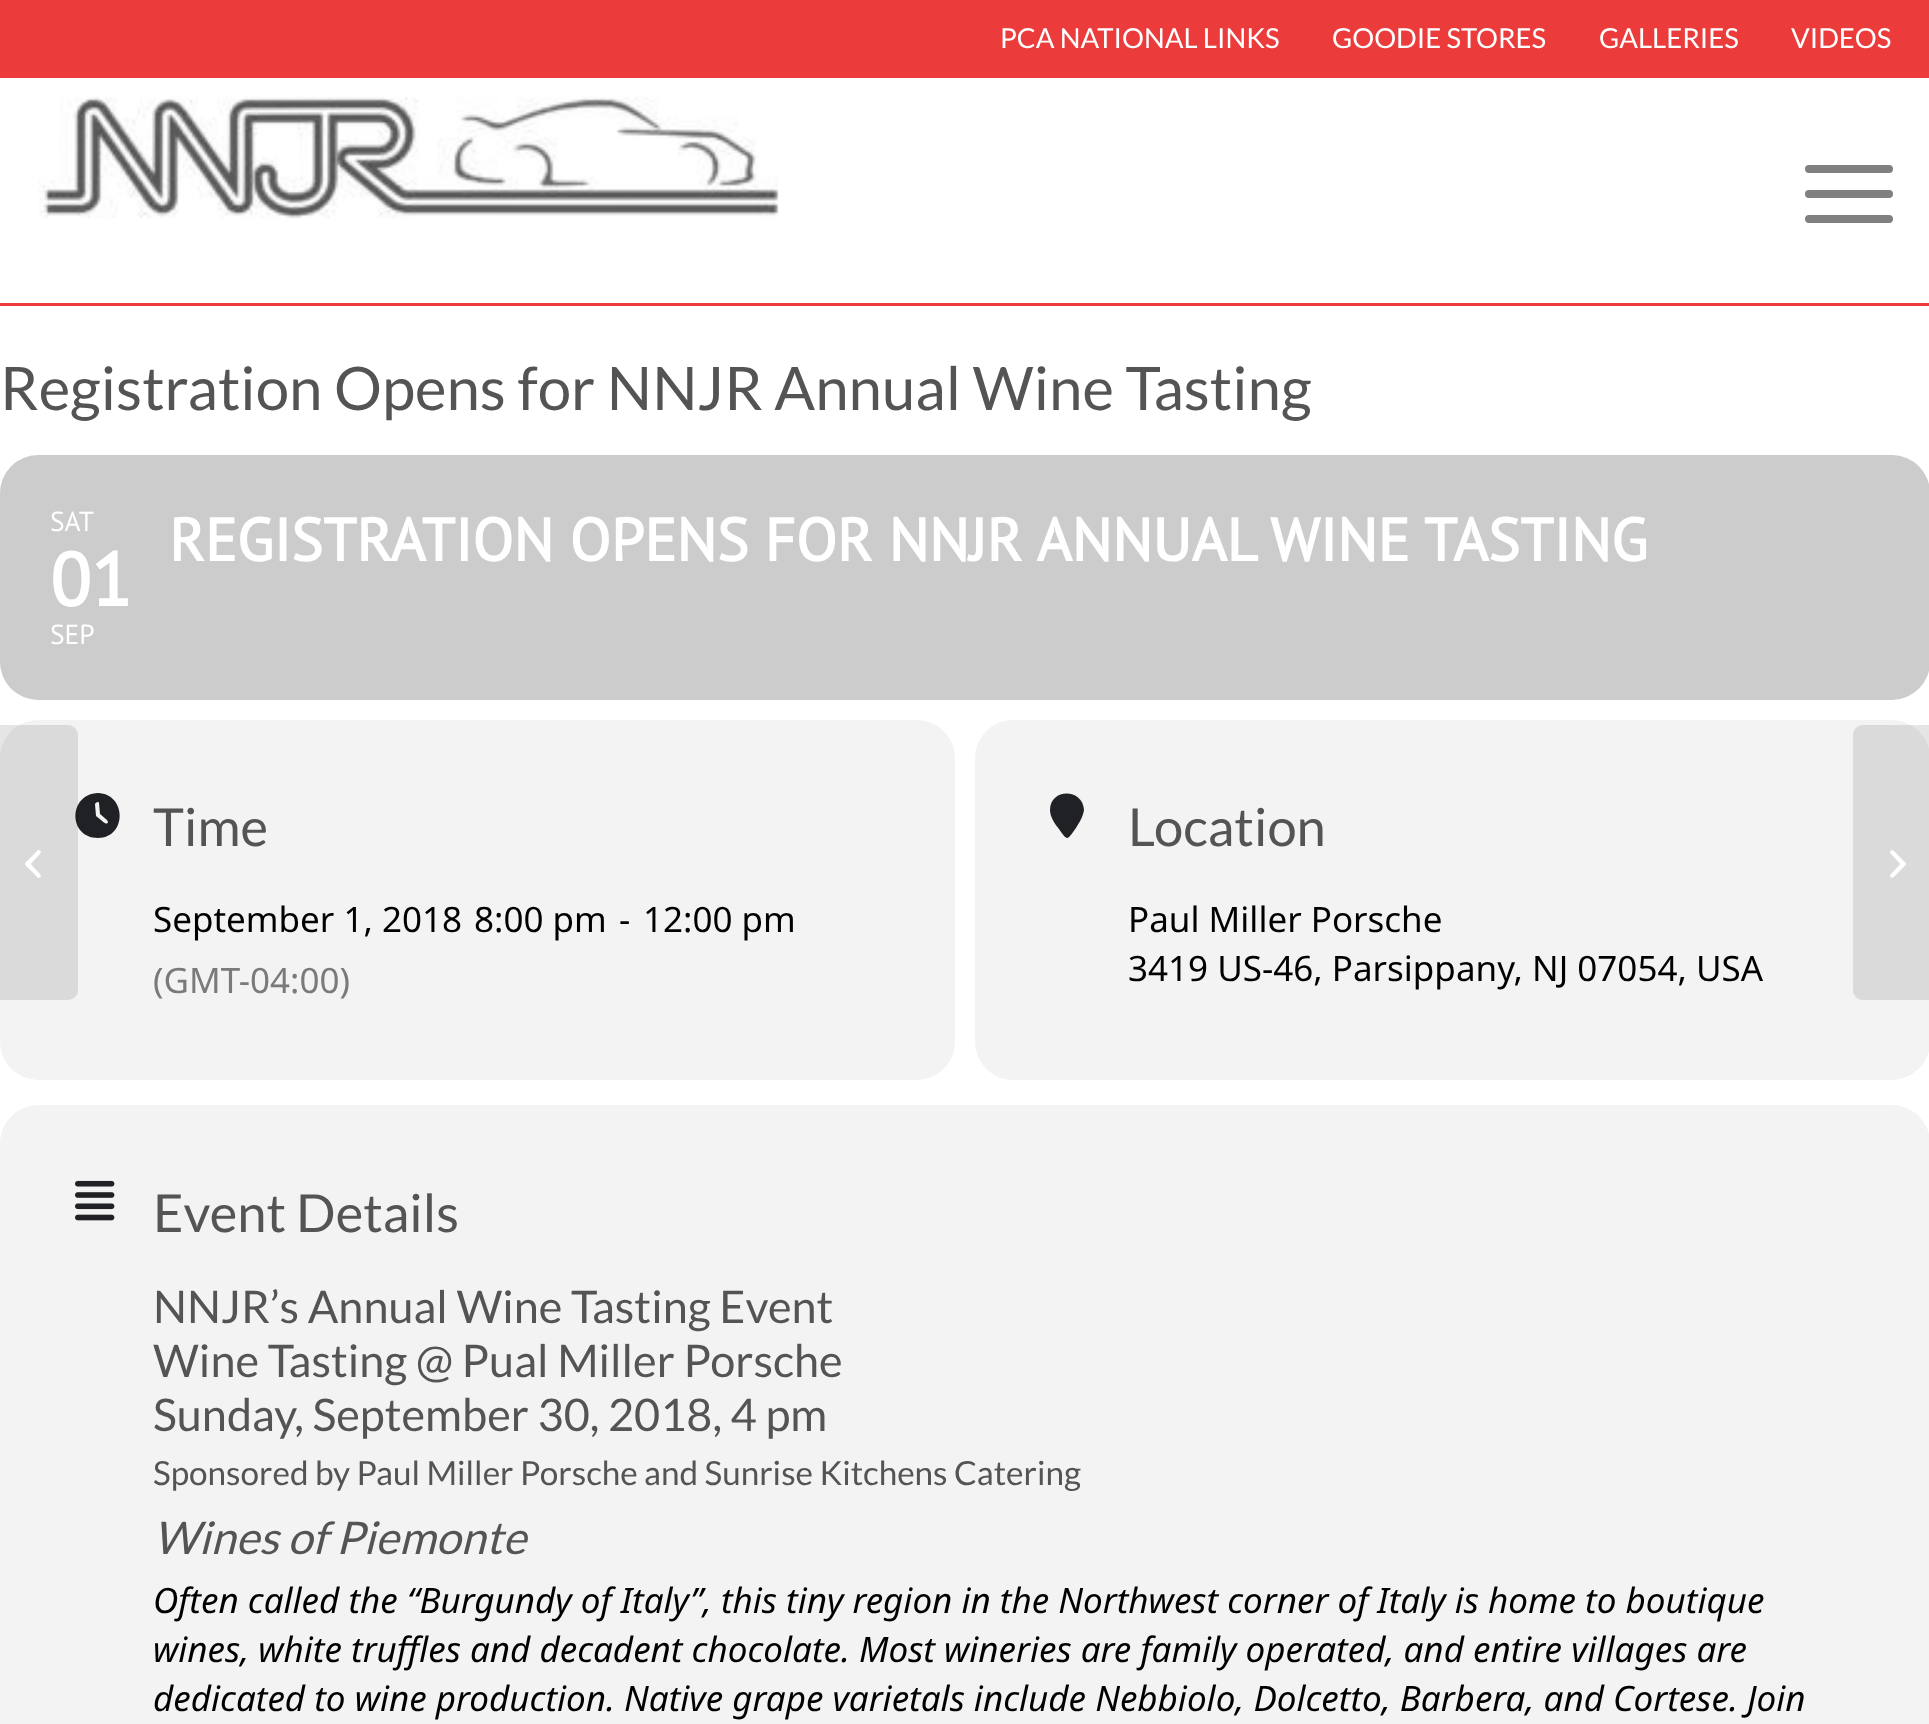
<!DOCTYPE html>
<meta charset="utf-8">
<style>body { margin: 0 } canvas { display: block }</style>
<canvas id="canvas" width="1929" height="1724"></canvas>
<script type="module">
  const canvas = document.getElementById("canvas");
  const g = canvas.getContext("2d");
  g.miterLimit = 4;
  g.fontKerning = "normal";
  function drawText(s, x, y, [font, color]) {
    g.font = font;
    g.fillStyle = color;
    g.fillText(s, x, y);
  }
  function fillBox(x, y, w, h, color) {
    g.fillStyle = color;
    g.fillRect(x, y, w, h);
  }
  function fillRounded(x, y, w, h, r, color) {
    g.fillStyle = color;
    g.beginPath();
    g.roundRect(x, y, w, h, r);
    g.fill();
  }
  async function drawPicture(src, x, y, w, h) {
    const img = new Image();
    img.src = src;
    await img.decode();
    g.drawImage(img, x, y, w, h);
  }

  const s1 = ["27.5px Lato", "#FFFFFF"];
  const s2 = ["60px Lato", "#545454"];
  const s3 = ["27.5px PT Sans", "#FFFFFF"];
  const s4 = ["bold 75px PT Sans", "#FFFFFF"];
  const s5 = ["bold 60px PT Sans", "#FFFFFF"];
  const s6 = ["52.5px Lato", "#545454"];
  const s7 = ["35px Noto Sans", "#000000"];
  const s8 = ["35px Noto Sans", "#7A7A7A"];
  const s9 = ["45px Lato", "#545454"];
  const s10 = ["33.3px Lato", "#545454"];
  const s11 = ["italic 45px Lato", "#545454"];
  const s12 = ["italic 35px Noto Sans", "#000000"];

  fillBox(0, 0, 1929, 1724, "#FFFFFF");
  fillBox(0, 0, 1929, 78, "#EB3B3B");
  drawText("PCA NATIONAL LINKS", 1000, 48, s1);
  drawText("GOODIE STORES", 1332, 48, s1);
  drawText("GALLERIES", 1599, 48, s1);
  drawText("VIDEOS", 1791, 48, s1);
  fillBox(0, 303, 1929, 3, "#EB3B3B");
  await drawPicture("pic1.png", 37, 78, 751, 141);
  fillRounded(1805, 190, 88, 8, 4, "#808080");
  fillRounded(1805, 165, 88, 8, 4, "#808080");
  fillRounded(1805, 215, 88, 8, 4, "#808080");
  drawText("Registration Opens for NNJR Annual Wine Tasting", 0, 410, s2);
  fillRounded(0, 455, 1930, 245, 38, "#CCCCCC");
  drawText("SAT", 50, 531, s3);
  drawText("01", 50, 606, s4);
  drawText("SEP", 50, 644, s3);
  drawText("REGISTRATION OPENS FOR NNJR ANNUAL WINE TASTING", 169, 561, s5);
  fillRounded(0, 720, 955, 360, 38, "#F3F3F3");
  g.fillStyle = "#202124";
  g.beginPath();
  g.moveTo(98, 793);
  g.bezierCurveTo(127, 794, 127, 838, 98, 838);
  g.bezierCurveTo(68, 838, 68, 794, 98, 793);
  g.closePath();
  g.moveTo(95, 804);
  g.lineTo(96, 816);
  g.lineTo(101, 820);
  g.bezierCurveTo(102, 821, 107, 826, 108, 822);
  g.lineTo(107, 820);
  g.lineTo(100, 814);
  g.lineTo(99, 803);
  g.bezierCurveTo(99, 801, 96, 802, 95, 804);
  g.closePath();
  g.fill();
  drawText("Time", 153, 846, s6);
  drawText("September 1, 2018", 153, 932, s7);
  drawText("8:00 pm", 474, 932, s7);
  drawText("-", 619, 932, s7);
  drawText("12:00 pm", 643, 932, s7);
  drawText("(GMT-04:00)", 153, 993, s8);
  fillRounded(975, 720, 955, 360, 38, "#F3F3F3");
  g.fillStyle = "#202124";
  g.beginPath();
  g.moveTo(1084, 810);
  g.bezierCurveTo(1083, 817, 1079, 823, 1076, 828);
  g.bezierCurveTo(1067, 840, 1068, 842, 1059, 829);
  g.bezierCurveTo(1055, 824, 1050, 817, 1050, 810);
  g.bezierCurveTo(1050, 788, 1083, 788, 1084, 810);
  g.closePath();
  g.fill();
  drawText("Location", 1128, 846, s6);
  drawText("Paul Miller Porsche", 1128, 932, s7);
  drawText("3419 US-46, Parsippany, NJ 07054, USA", 1128, 981, s7);
  fillRounded(0, 1105, 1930, 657, 38, "#F3F3F3");
  await drawPicture("pic2.png", 75, 1180, 40, 41);
  drawText("Event Details", 153, 1232, s6);
  drawText("NNJR’s Annual Wine Tasting Event", 153, 1323, s9);
  drawText("Wine Tasting @ Pual Miller Porsche", 153, 1377, s9);
  drawText("Sunday, September 30, 2018, 4 pm", 153, 1431, s9);
  drawText("Sponsored by Paul Miller Porsche and Sunrise Kitchens Catering", 153, 1485, s10);
  drawText("Wines of Piemonte", 153, 1554, s11);
  drawText("Often called the “Burgundy of Italy”, this tiny region in the Northwest corner of Italy is home to boutique", 153, 1613, s12);
  drawText("wines, white truffles and decadent chocolate. Most wineries are family operated, and entire villages are", 153, 1662, s12);
  drawText("dedicated to wine production. Native grape varietals include Nebbiolo, Dolcetto, Barbera, and Cortese. Join", 153, 1711, s12);
  g.fillStyle = "rgba(0, 0, 0, 0.1)";
  g.beginPath();
  g.roundRect(0, 725, 78, 275, [0, 10, 10, 0]);
  g.fill();
  await drawPicture("pic3.png", 25, 850, 16, 28);
  g.beginPath();
  g.moveTo(1863, 725);
  g.lineTo(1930, 725);
  g.lineTo(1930, 1000);
  g.lineTo(1863, 1000);
  g.bezierCurveTo(1857.5, 1000, 1853, 995.5, 1853, 990);
  g.lineTo(1853, 735);
  g.bezierCurveTo(1853, 729.5, 1857.5, 725, 1863, 725);
  g.closePath();
  g.fill();
  await drawPicture("pic4.png", 1890, 850, 16, 28);
</script>
